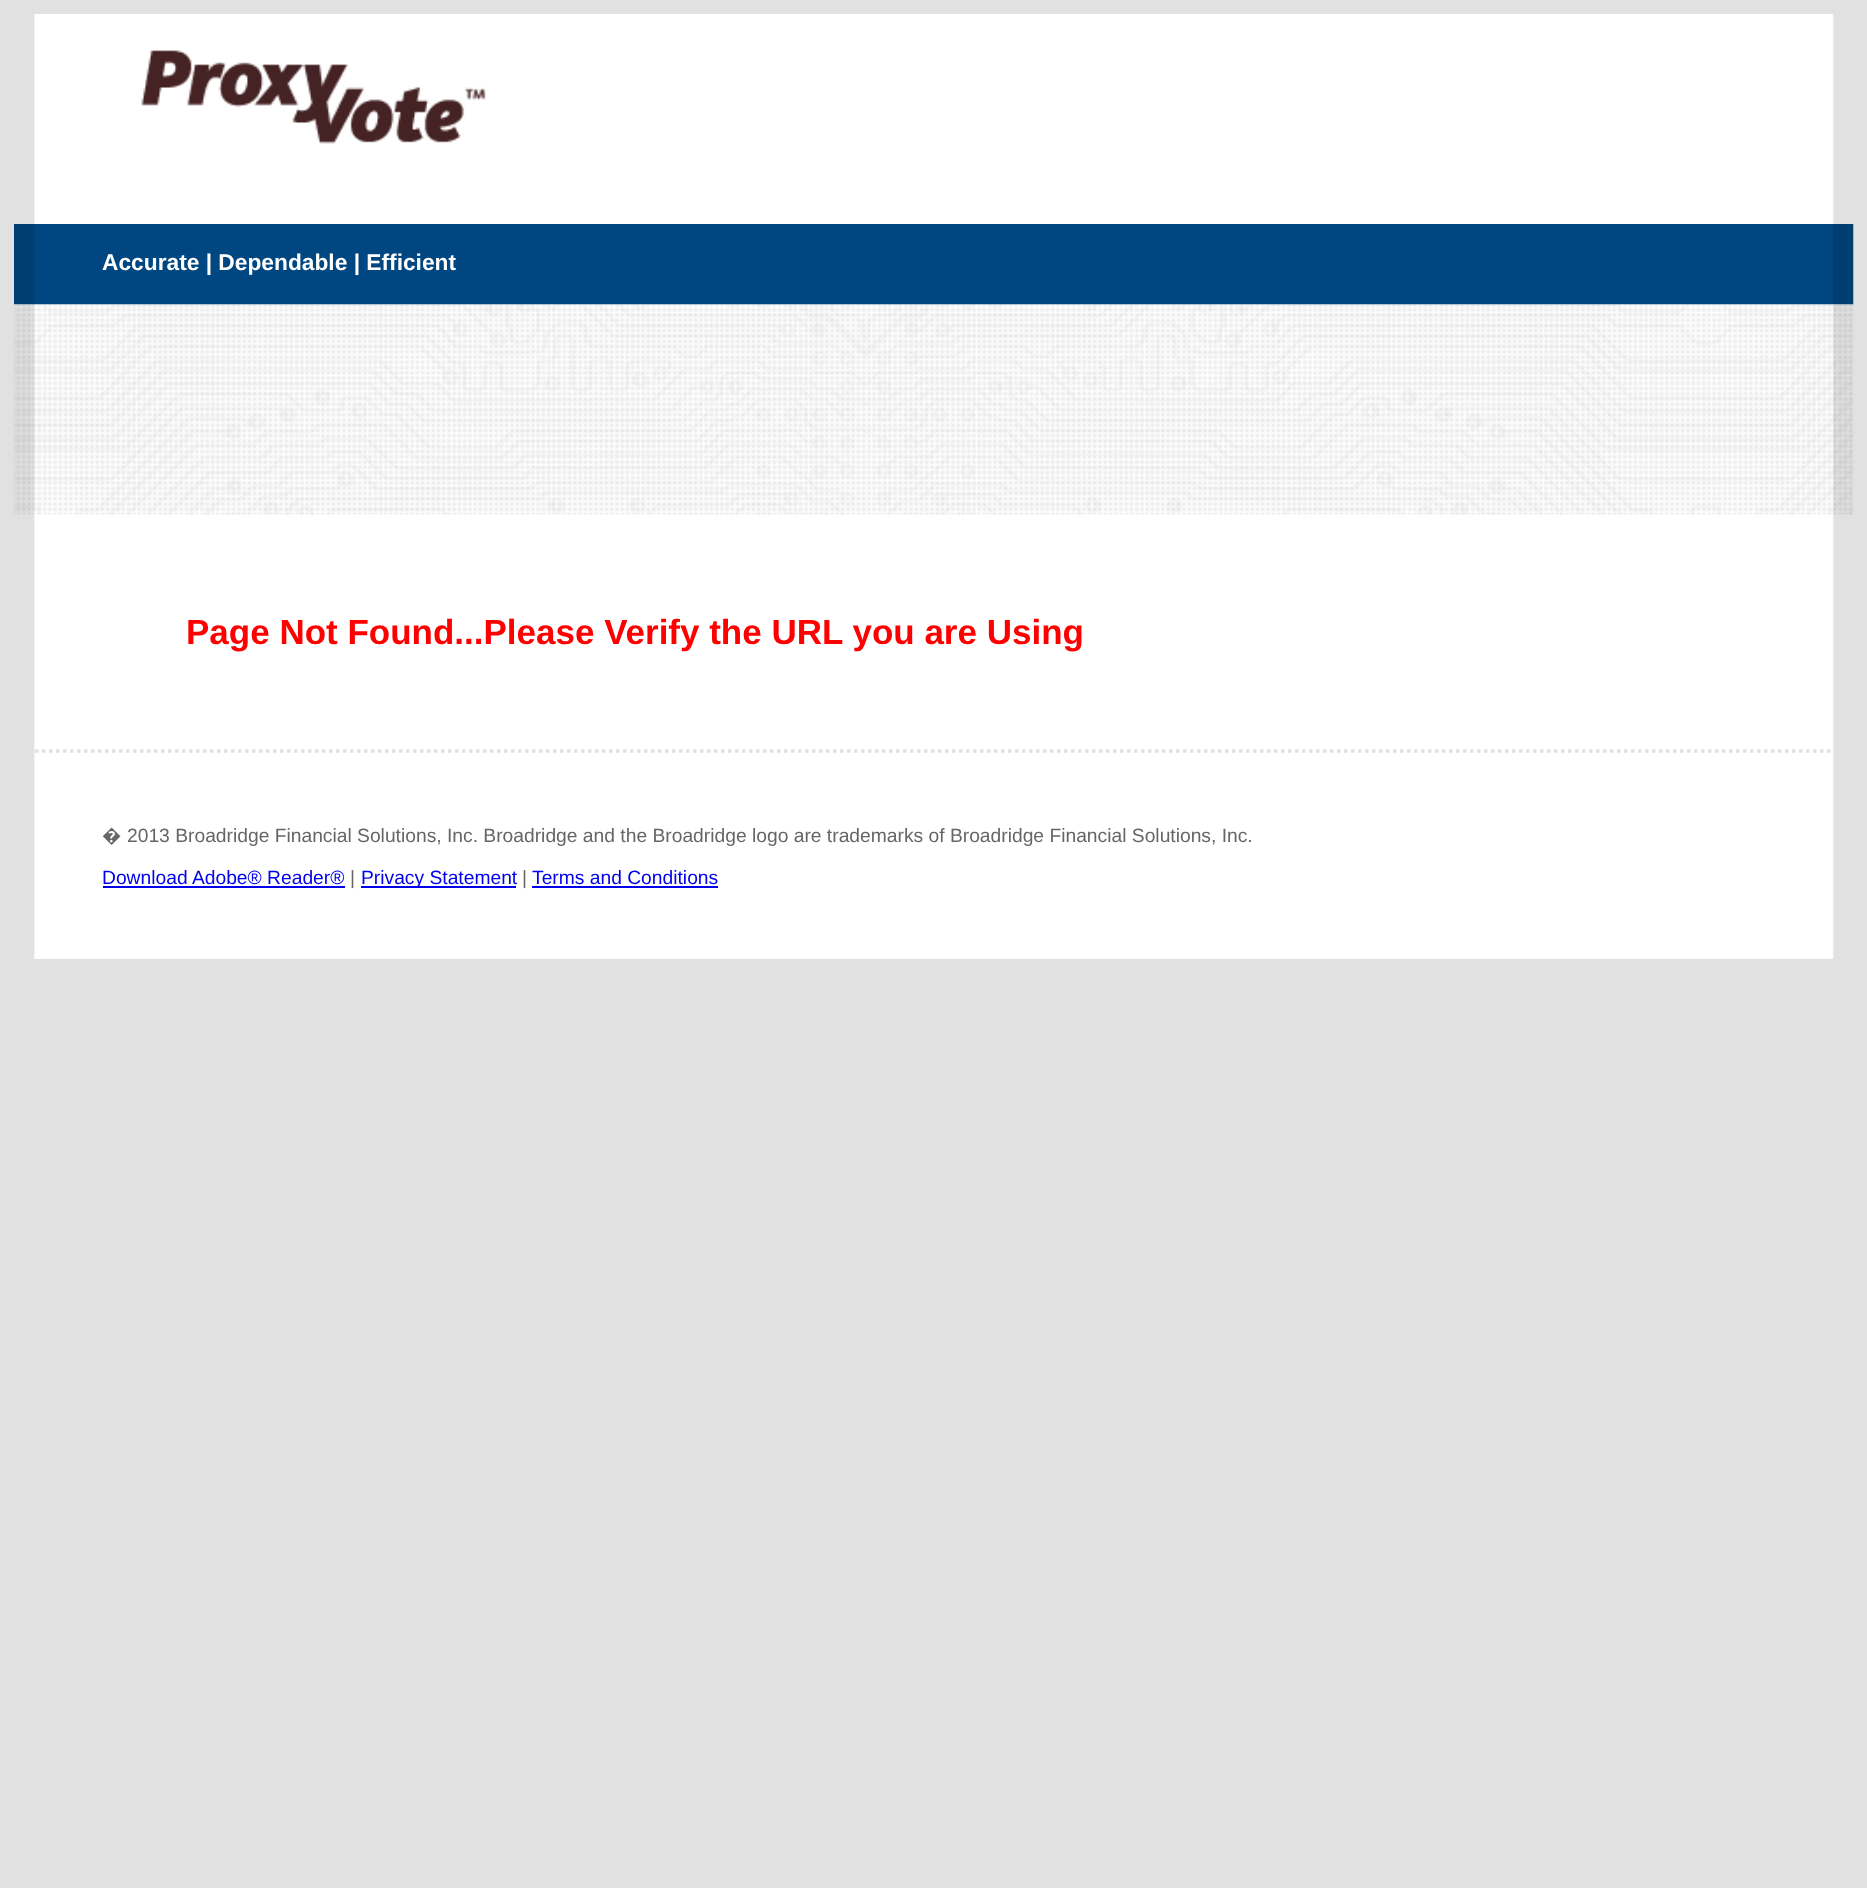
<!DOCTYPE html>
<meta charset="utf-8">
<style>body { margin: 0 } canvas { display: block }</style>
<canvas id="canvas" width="1867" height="1888"></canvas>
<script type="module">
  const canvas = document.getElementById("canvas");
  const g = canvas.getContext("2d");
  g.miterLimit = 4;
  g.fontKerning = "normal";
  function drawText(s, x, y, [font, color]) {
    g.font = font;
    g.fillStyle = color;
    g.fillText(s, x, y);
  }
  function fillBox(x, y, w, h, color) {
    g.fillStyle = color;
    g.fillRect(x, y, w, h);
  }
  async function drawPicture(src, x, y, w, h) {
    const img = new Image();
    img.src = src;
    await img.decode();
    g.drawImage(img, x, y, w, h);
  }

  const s1 = ["bold 22.75px Liberation Sans", "#FFFFFF"];
  const s2 = ["bold 35px Liberation Sans", "#FF0000"];
  const s3 = ["19.25px Noto Sans", "#666666"];
  const s4 = ["19.25px Liberation Sans", "#666666"];
  const s5 = ["19.25px Liberation Sans", "#0000EE"];

  fillBox(0, 0, 1867, 1888, "#E1E1E1");
  await drawPicture("pic1.png", 34, 14, 1800, 210);
  await drawPicture("pic2.png", 141, 50, 345, 94);
  await drawPicture("pic4.png", 34, 304, 1800, 445);
  await drawPicture("pic3.png", 14, 224, 1840, 81);
  drawText("Accurate | Dependable | Efficient", 102, 270, s1);
  await drawPicture("pic5.png", 14, 304, 1839, 211);
  drawText("Page Not Found...Please Verify the URL you are Using", 186, 644, s2);
  await drawPicture("pic1.png", 34, 749, 1800, 210);
  g.beginPath();
  g.moveTo(14, 751);
  g.lineTo(1853, 751);
  g.strokeStyle = "#E1E1E1";
  g.lineWidth = 3.5;
  g.setLineDash([3.5, 3.5]);
  g.stroke();
  drawText("�", 102, 842, s3);
  drawText("2013 Broadridge Financial Solutions, Inc. Broadridge and the Broadridge logo are trademarks of Broadridge Financial Solutions, Inc.", 127, 842, s4);
  drawText("Download Adobe® Reader®", 102, 884, s5);
  fillBox(103, 886, 242, 2, "#0000EE");
  drawText("|", 350, 884, s4);
  fillBox(361, 886, 155, 2, "#0000EE");
  drawText("Privacy Statement", 361, 884, s5);
  drawText("|", 522, 884, s4);
  drawText("Terms and Conditions", 532, 884, s5);
  fillBox(532, 886, 186, 2, "#0000EE");
</script>
